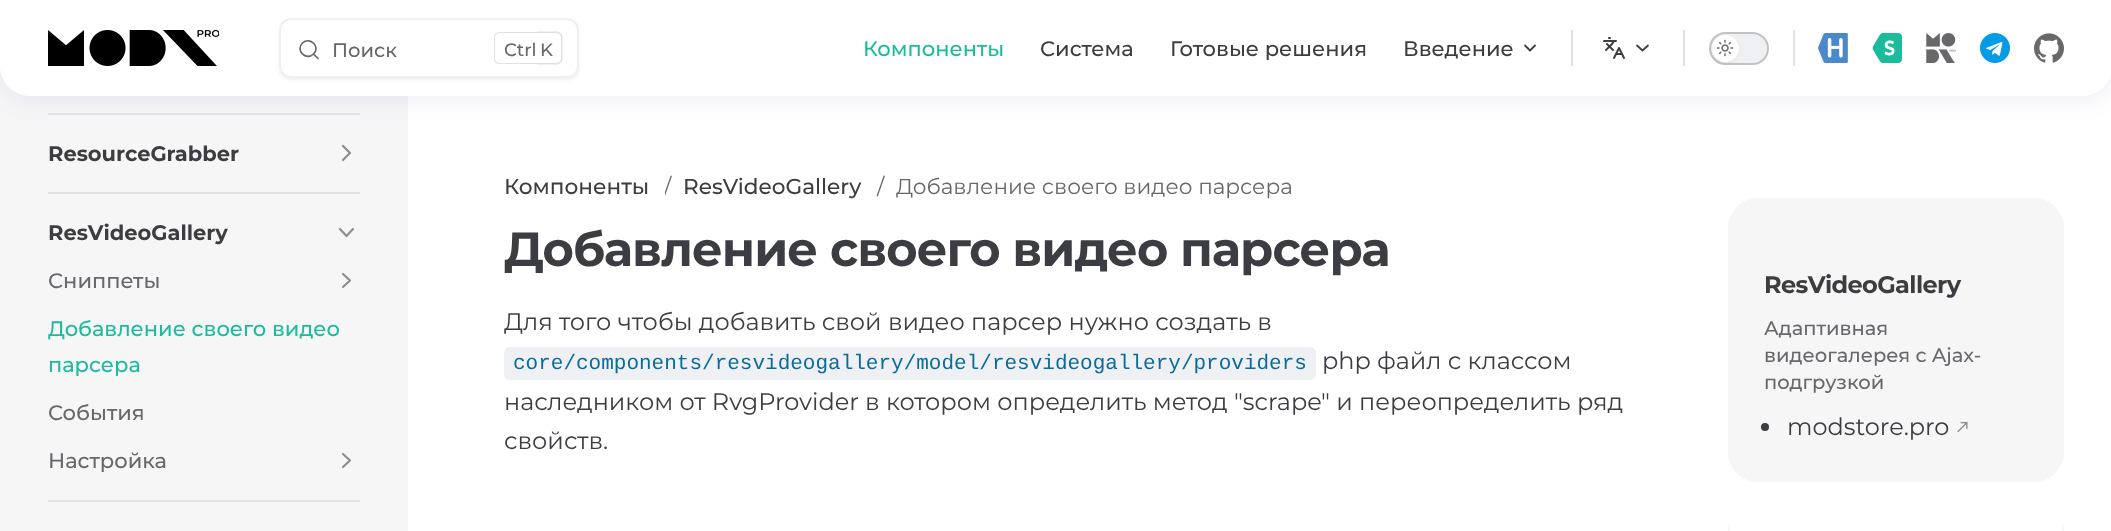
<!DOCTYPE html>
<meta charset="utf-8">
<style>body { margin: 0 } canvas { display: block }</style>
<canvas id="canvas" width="2111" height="531"></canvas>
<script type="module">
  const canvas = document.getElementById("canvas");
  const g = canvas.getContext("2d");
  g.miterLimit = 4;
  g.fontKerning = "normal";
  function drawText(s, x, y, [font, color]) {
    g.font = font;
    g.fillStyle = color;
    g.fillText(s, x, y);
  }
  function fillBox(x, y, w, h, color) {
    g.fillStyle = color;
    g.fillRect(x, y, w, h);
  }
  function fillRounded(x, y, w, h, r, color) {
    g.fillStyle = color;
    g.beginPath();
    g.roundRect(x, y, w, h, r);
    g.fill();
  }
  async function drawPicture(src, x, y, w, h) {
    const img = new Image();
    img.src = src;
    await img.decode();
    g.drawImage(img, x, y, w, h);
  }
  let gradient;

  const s1 = ["500 19.5px Montserrat", "#67676C"];
  const s2 = ["500 18px Montserrat", "#67676C"];
  const s3 = ["500 21px Montserrat", "#1ABC9C"];
  const s4 = ["500 21px Montserrat", "#3C3C43"];
  const s5 = ["bold 21px Montserrat", "#3C3C43"];
  const s6 = ["500 21px Montserrat", "#67676C"];
  const s7 = ["500 21.6px Montserrat", "#3C3C43"];
  const s8 = ["21.6px Montserrat", "#67676C"];
  const s9 = ["bold 48px Montserrat", "#3C3C43"];
  const s10 = ["24px Montserrat", "#3C3C43"];
  const s11 = ["21px Liberation Mono", "#096C9A"];
  const s12 = ["bold 24px Montserrat", "#3C3C43"];

  fillBox(0, 0, 2111, 531, "#FFFFFF");
  fillBox(0, 66, 408, 465, "#F6F6F7");
  fillBox(48, 113, 312, 2, "#E2E2E3");
  g.fillStyle = "rgba(47, 63, 147, 0.08)";
  g.filter = "blur(11px)";
  g.beginPath();
  g.roundRect(0, 6, 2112, 96, 30);
  g.fill();
  g.filter = "none";
  g.fillStyle = "#FFFFFF";
  g.beginPath();
  g.moveTo(0, 0);
  g.lineTo(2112, 0);
  g.lineTo(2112, 66);
  g.bezierCurveTo(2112, 82.5, 2098.5, 96, 2082, 96);
  g.lineTo(30, 96);
  g.bezierCurveTo(13.5, 96, 0, 82.5, 0, 66);
  g.closePath();
  g.fill();
  await drawPicture("pic1.png", 48, 30, 171, 36);
  g.fillStyle = "rgba(0, 0, 0, 0.06)";
  g.filter = "blur(1.5px)";
  g.beginPath();
  g.roundRect(279, 20, 300, 60, 12);
  g.fill();
  g.filter = "none";
  fillRounded(279, 18, 300, 60, 12, "#FFFFFF");
  g.beginPath();
  g.roundRect(280, 19, 298, 58, 11);
  g.strokeStyle = "rgba(142, 150, 170, 0.14)";
  g.lineWidth = 2;
  g.stroke();
  g.beginPath();
  g.moveTo(313.5, 54);
  g.lineTo(318, 58.5);
  g.lineTo(313.5, 54);
  g.bezierCurveTo(306, 61.5, 295, 50, 302.5, 43);
  g.bezierCurveTo(310, 36, 321, 47, 313.5, 54);
  g.closePath();
  g.strokeStyle = "#67676C";
  g.lineWidth = 1.7;
  g.lineCap = "round";
  g.lineJoin = "round";
  g.stroke();
  drawText("Поиск", 332, 57, s1);
  g.fillStyle = "#E2E2E3";
  g.beginPath();
  g.moveTo(500, 32);
  g.lineTo(537, 32);
  g.lineTo(537, 64);
  g.lineTo(500, 64);
  g.bezierCurveTo(496, 64, 494, 62, 494, 58);
  g.lineTo(494, 38);
  g.bezierCurveTo(494, 34, 496, 32, 500, 32);
  g.closePath();
  g.moveTo(500, 33);
  g.lineTo(537, 33);
  g.lineTo(537, 63);
  g.lineTo(500, 63);
  g.bezierCurveTo(497, 63, 495, 61, 495, 58);
  g.lineTo(495, 38);
  g.bezierCurveTo(495, 35, 497, 33, 500, 33);
  g.closePath();
  g.fill("evenodd");
  drawText("Ctrl", 504, 56, s2);
  g.fillStyle = "#E2E2E3";
  g.beginPath();
  g.moveTo(537, 31.5);
  g.lineTo(556.5, 31.5);
  g.bezierCurveTo(560, 31.5, 562.5, 34, 562.5, 37.5);
  g.lineTo(562.5, 58.5);
  g.bezierCurveTo(562.5, 62, 560, 64.5, 556.5, 64.5);
  g.lineTo(537, 64.5);
  g.closePath();
  g.moveTo(537, 33);
  g.lineTo(556.5, 33);
  g.bezierCurveTo(559, 33, 561, 35, 561, 37.5);
  g.lineTo(561, 58.5);
  g.bezierCurveTo(561, 61, 559, 63, 556.5, 63);
  g.lineTo(537, 63);
  g.closePath();
  g.fill("evenodd");
  drawText("K", 540, 56, s2);
  drawText("Компоненты", 863, 56, s3);
  drawText("Система", 1040, 56, s4);
  drawText("Готовые решения", 1170, 56, s4);
  drawText("Введение", 1403, 56, s4);
  g.beginPath();
  g.moveTo(1525, 45.5);
  g.lineTo(1530, 50.5);
  g.lineTo(1535, 45.5);
  g.strokeStyle = "#3C3C43";
  g.lineWidth = 1.8;
  g.stroke();
  fillBox(1571, 30, 2, 36, "#E2E2E3");
  await drawPicture("pic2.png", 1603, 37, 22, 22);
  g.beginPath();
  g.moveTo(1637, 45.5);
  g.lineTo(1642.5, 50.5);
  g.lineTo(1648, 45.5);
  g.stroke();
  fillBox(1683, 30, 2, 36, "#E2E2E3");
  g.fillStyle = "#EFF0F3";
  g.beginPath();
  g.roundRect(1710, 33, 58, 31, 15.5);
  g.fill();
  g.strokeStyle = "#C2C2C4";
  g.lineWidth = 2;
  g.lineJoin = "miter";
  g.stroke();
  g.fillStyle = "rgba(0, 0, 0, 0.06)";
  g.filter = "blur(1.5px)";
  g.beginPath();
  g.roundRect(1712, 36, 27, 27, 13.5);
  g.fill();
  g.filter = "none";
  g.fillStyle = "#FFFFFF";
  g.beginPath();
  g.arc(1725.5, 48.5, 13.5, 0, Math.PI * 2);
  g.fill();
  await drawPicture("pic3.png", 1716, 39, 18, 18);
  fillBox(1793, 30, 2, 36, "#E2E2E3");
  await drawPicture("pic4.png", 1818, 33, 30, 30);
  await drawPicture("pic5.png", 1872, 33, 30, 30);
  await drawPicture("pic6.png", 1926, 33, 30, 30);
  await drawPicture("pic7.png", 1980, 33, 30, 30);
  await drawPicture("pic8.png", 2034, 33, 30, 30);
  drawText("ResourceGrabber", 48, 161, s5);
  g.beginPath();
  g.moveTo(343, 160);
  g.lineTo(350, 153);
  g.lineTo(343, 146);
  g.strokeStyle = "#8E8E92";
  g.lineWidth = 2.2;
  g.lineJoin = "round";
  g.stroke();
  fillBox(48, 192, 312, 2, "#E2E2E3");
  drawText("ResVideoGallery", 48, 240, s5);
  g.beginPath();
  g.moveTo(340, 229);
  g.lineTo(346.5, 236);
  g.lineTo(353, 229);
  g.stroke();
  drawText("Сниппеты", 48, 288, s6);
  g.beginPath();
  g.moveTo(343, 287);
  g.lineTo(350, 280.5);
  g.lineTo(343, 274);
  g.stroke();
  drawText("Добавление своего видео", 48, 336, s3);
  drawText("парсера", 48, 372, s3);
  drawText("События", 48, 420, s6);
  drawText("Настройка", 48, 468, s6);
  g.beginPath();
  g.moveTo(343, 467);
  g.lineTo(350, 460.5);
  g.lineTo(343, 454);
  g.stroke();
  fillBox(48, 500, 312, 2, "#E2E2E3");
  drawText("Компоненты", 504, 194, s7);
  g.save();
  g.beginPath();
  g.rect(665, 168, 196, 36);
  g.clip();
  drawText("/", 664, 194, s8);
  g.restore();
  drawText("ResVideoGallery", 683, 194, s7);
  drawText("/", 877, 194, s8);
  drawText("Добавление своего видео парсера", 896, 194, s8);
  g.letterSpacing = "-0.95px";
  drawText("Добавление своего видео парсера", 504, 266, s9);
  g.letterSpacing = "0px";
  drawText("Для того чтобы добавить свой видео парсер нужно создать в", 504, 330, s10);
  fillRounded(504, 347, 812, 33, 6, "#EFF0F3");
  drawText("core/components/resvideogallery/model/resvideogallery/providers", 513, 369, s11);
  drawText("php файл с классом", 1322, 369, s10);
  drawText("наследником от RvgProvider в котором определить метод \"scrape\" и переопределить ряд", 504, 410, s10);
  drawText("свойств.", 504, 449, s10);
  fillRounded(1728, 198, 336, 284, 30, "#F6F6F7");
  g.letterSpacing = "-0.6px";
  drawText("ResVideoGallery", 1764, 293, s12);
  g.letterSpacing = "0px";
  drawText("Адаптивная", 1764, 335, s1);
  drawText("видеогалерея с Ajax-", 1764, 362, s1);
  drawText("подгрузкой", 1764, 389, s1);
  g.fillStyle = "#3C3C43";
  g.beginPath();
  g.arc(1765, 427, 4, 0, Math.PI * 2);
  g.fill();
  drawText("modstore.pro", 1787, 435, s10);
  await drawPicture("pic9.png", 1957, 421, 11, 12);
  g.fillStyle = "#F6F6F7";
  g.beginPath();
  g.roundRect(1728, 512, 336, 19, [30, 30, 0, 0]);
  g.fill();
  gradient = g.createLinearGradient(1896, 483, 1896, 531);
  gradient.addColorStop(0, "rgba(255, 255, 255, 0)");
  gradient.addColorStop(0.7, "#FFFFFF");
  g.fillStyle = gradient;
  g.fillRect(1730, 512, 332, 19);
</script>
